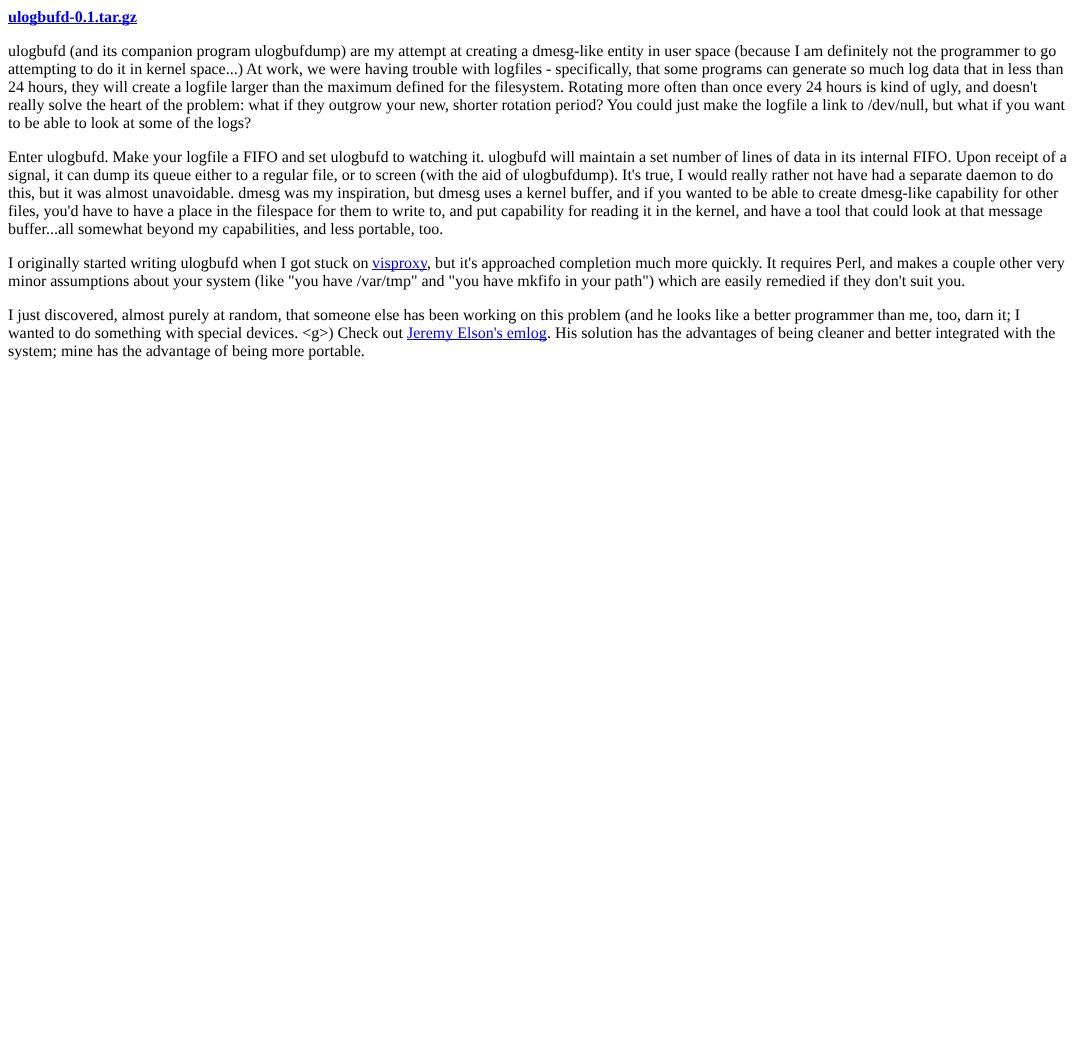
<!DOCTYPE html>
<meta charset="utf-8">
<style>body { margin: 0 } canvas { display: block }</style>
<canvas id="canvas" width="1076" height="1046"></canvas>
<script type="module">
  const canvas = document.getElementById("canvas");
  const g = canvas.getContext("2d");
  g.miterLimit = 4;
  g.fontKerning = "normal";
  function drawText(s, x, y, [font, color]) {
    g.font = font;
    g.fillStyle = color;
    g.fillText(s, x, y);
  }
  function fillBox(x, y, w, h, color) {
    g.fillStyle = color;
    g.fillRect(x, y, w, h);
  }

  const s1 = ["bold 16px Liberation Serif", "#0000EE"];
  const s2 = ["16px Liberation Serif", "#000000"];
  const s3 = ["16px Liberation Serif", "#0000EE"];

  fillBox(0, 0, 1076, 1046, "#FFFFFF");
  fillBox(8, 23, 129, 1, "#0000EE");
  drawText("ulogbufd-0.1.tar.gz", 8, 22, s1);
  drawText("ulogbufd (and its companion program ulogbufdump) are my attempt at creating a dmesg-like entity in user space (because I am definitely not the programmer to go", 8, 56, s2);
  drawText("attempting to do it in kernel space...)", 8, 74, s2);
  drawText("At work, we were having trouble with logfiles - specifically, that some programs can generate so much log data that in less than", 246, 74, s2);
  drawText("24 hours, they will create a logfile larger than the maximum defined for the filesystem. Rotating more often than once every 24 hours is kind of ugly, and doesn't", 8, 92, s2);
  drawText("really solve the heart of the problem: what if they outgrow your new, shorter rotation period? You could just make the logfile a link to /dev/null, but what if you want", 8, 110, s2);
  drawText("to be able to look at some of the logs?", 8, 128, s2);
  drawText("Enter ulogbufd. Make your logfile a FIFO and set ulogbufd to watching it. ulogbufd will maintain a set number of lines of data in its internal FIFO. Upon receipt of a", 8, 162, s2);
  drawText("signal, it can dump its queue either to a regular file, or to screen (with the aid of ulogbufdump). It's true, I would really rather not have had a separate daemon to do", 8, 180, s2);
  drawText("this, but it was almost unavoidable. dmesg was my inspiration, but dmesg uses a kernel buffer, and if you wanted to be able to create dmesg-like capability for other", 8, 198, s2);
  drawText("files, you'd have to have a place in the filespace for them to write to, and put capability for reading it in the kernel, and have a tool that could look at that message", 8, 216, s2);
  drawText("buffer...all somewhat beyond my capabilities, and less portable, too.", 8, 234, s2);
  drawText("I originally started writing ulogbufd when I got stuck on", 8, 268, s2);
  fillBox(372, 269, 55, 1, "#0000EE");
  drawText("visproxy", 372, 268, s3);
  drawText(", but it's approached completion much more quickly. It requires Perl, and makes a couple other very", 427, 268, s2);
  drawText("minor assumptions about your system (like \"you have /var/tmp\" and \"you have mkfifo in your path\") which are easily remedied if they don't suit you.", 8, 286, s2);
  drawText("I just discovered, almost purely at random, that someone else has been working on this problem (and he looks like a better programmer than me, too, darn it; I", 8, 320, s2);
  drawText("wanted to do something with special devices. <g>) Check out", 8, 338, s2);
  fillBox(407, 339, 140, 1, "#0000EE");
  drawText("Jeremy Elson's emlog", 407, 338, s3);
  drawText(". His solution has the advantages of being cleaner and better integrated with the", 547, 338, s2);
  drawText("system; mine has the advantage of being more portable.", 8, 356, s2);
</script>
